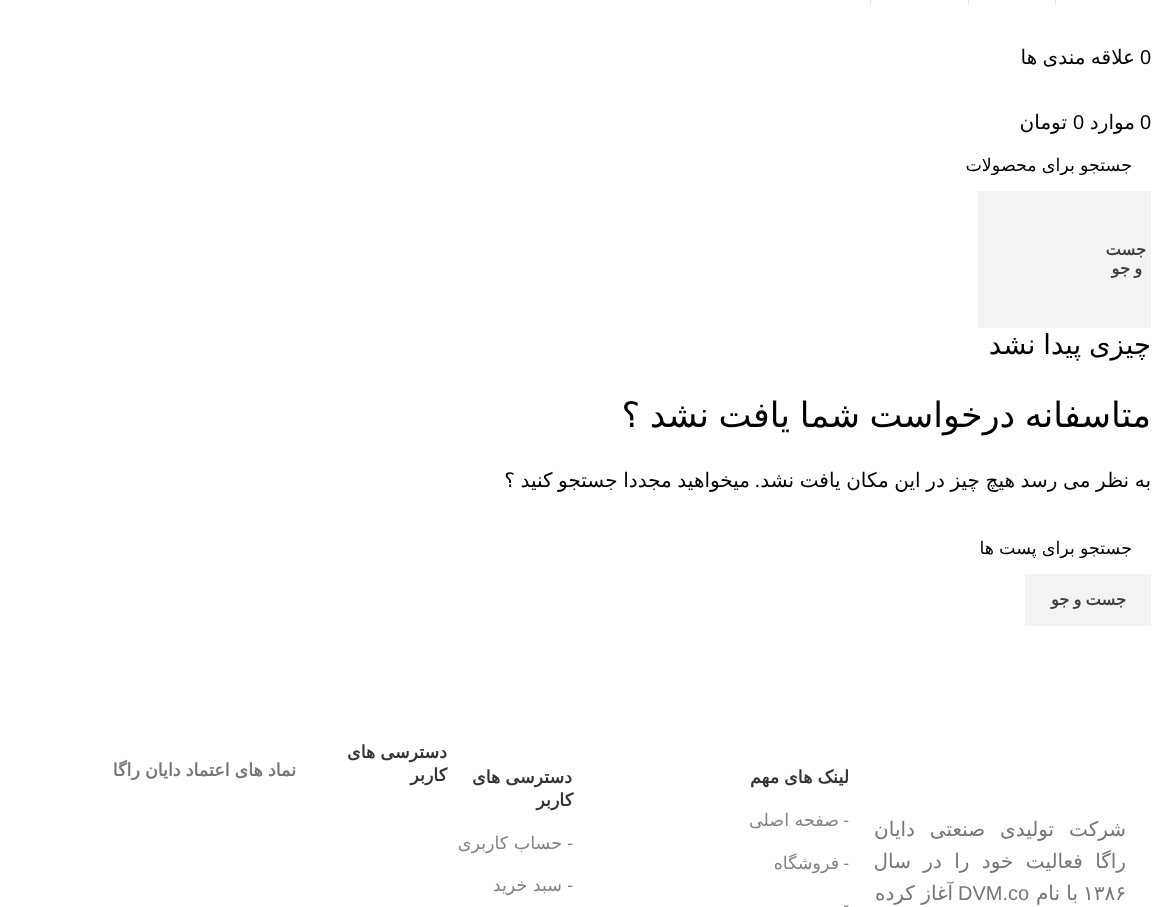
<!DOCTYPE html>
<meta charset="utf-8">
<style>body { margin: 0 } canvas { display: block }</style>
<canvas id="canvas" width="1169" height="907"></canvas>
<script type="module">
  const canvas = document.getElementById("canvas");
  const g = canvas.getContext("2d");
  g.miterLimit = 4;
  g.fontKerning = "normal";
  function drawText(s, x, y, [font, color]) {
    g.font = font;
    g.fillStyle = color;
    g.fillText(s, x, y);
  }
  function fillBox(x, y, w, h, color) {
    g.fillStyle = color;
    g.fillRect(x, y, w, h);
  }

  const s1 = ["20px Liberation Sans", "#000000"];
  const s2 = ["20px DejaVu Sans", "#000000"];
  const s3 = ["17.5px DejaVu Sans", "#000000"];
  const s4 = ["bold 16.25px DejaVu Sans", "#3E3E3E"];
  const s5 = ["27.5px DejaVu Sans", "#000000"];
  const s6 = ["35px DejaVu Sans", "#000000"];
  const s7 = ["20px DejaVu Sans", "#767676"];
  const s8 = ["20px Liberation Sans", "#767676"];
  const s9 = ["bold 17.5px DejaVu Sans", "#333333"];
  const s10 = ["17.5px Liberation Sans", "#838383"];
  const s11 = ["17.5px DejaVu Sans", "#838383"];
  const s12 = ["bold 17.5px DejaVu Sans", "#767676"];

  fillBox(0, 0, 1169, 907, "#FFFFFF");
  fillBox(1055, 0, 1, 5, "#E4E4E4");
  fillBox(968, 0, 1, 5, "#E4E4E4");
  fillBox(870, 0, 1, 5, "#E4E4E4");
  drawText("0", 1140, 64, s1);
  g.wordSpacing = "-1px";
  g.direction = "rtl";
  drawText("علاقه مندی ها", 1135, 64, s2);
  g.wordSpacing = "0px";
  g.direction = "ltr";
  drawText("0", 1140, 129, s1);
  g.direction = "rtl";
  drawText("موارد", 1135, 129, s2);
  g.direction = "ltr";
  drawText("0", 1073, 129, s1);
  g.direction = "rtl";
  drawText("تومان", 1067, 129, s2);
  g.save();
  g.beginPath();
  g.rect(38, 155, 1095, 20);
  g.clip();
  g.wordSpacing = "-0.5px";
  drawText("جستجو برای محصولات", 1132, 171, s3);
  g.restore();
  fillBox(978, 191, 173, 137, "#F3F3F3");
  drawText("جست", 1146, 255, s4);
  g.wordSpacing = "-1px";
  drawText("و جو", 1142, 274, s4);
  drawText("چیزی پیدا نشد", 1151, 354, s5);
  g.wordSpacing = "-1.5px";
  drawText("متاسفانه درخواست شما یافت نشد ؟", 1151, 427, s6);
  g.wordSpacing = "-0.75px";
  drawText("به نظر می رسد هیچ چیز در این مکان یافت نشد", 1151, 487, s2);
  g.wordSpacing = "0px";
  drawText(".", 760, 487, s1);
  g.wordSpacing = "-0.75px";
  drawText("میخواهید مجددا جستجو کنید ؟", 750, 487, s2);
  g.save();
  g.beginPath();
  g.rect(38, 538, 1095, 20);
  g.clip();
  g.wordSpacing = "-0.5px";
  drawText("جستجو برای پست ها", 1132, 554, s3);
  g.restore();
  fillBox(1025, 574, 126, 52, "#F3F3F3");
  g.wordSpacing = "-1px";
  drawText("جست و جو", 1126, 605, s4);
  g.wordSpacing = "8.5px";
  drawText("شرکت تولیدی صنعتی دایان", 1126, 836, s7);
  g.wordSpacing = "6px";
  drawText("راگا فعالیت خود را در سال", 1126, 868, s7);
  g.wordSpacing = "0px";
  g.direction = "ltr";
  drawText("۱۳۸۶", 1083, 900, s7);
  g.direction = "rtl";
  drawText("با نام", 1078, 900, s7);
  g.direction = "ltr";
  drawText("DVM.co", 958, 900, s8);
  g.direction = "rtl";
  drawText("آغاز کرده", 953, 900, s7);
  g.wordSpacing = "-0.5px";
  drawText("لینک های مهم", 849, 783, s9);
  g.wordSpacing = "0px";
  drawText("-", 849, 826, s10);
  drawText("صفحه اصلی", 839, 826, s11);
  drawText("-", 849, 869, s10);
  drawText("فروشگاه", 839, 869, s11);
  drawText("-", 849, 911, s10);
  g.wordSpacing = "-0.5px";
  drawText("دسترسی های", 572, 783, s9);
  drawText("دسترسی های", 447, 758, s9);
  g.wordSpacing = "0px";
  drawText("کاربر", 447, 781, s9);
  drawText("کاربر", 573, 806, s9);
  drawText("-", 573, 849, s10);
  drawText("حساب کاربری", 562, 849, s11);
  drawText("-", 573, 891, s10);
  drawText("سبد خرید", 562, 891, s11);
  g.wordSpacing = "-0.5px";
  drawText("نماد های اعتماد دایان راگا", 296, 776, s12);
</script>
